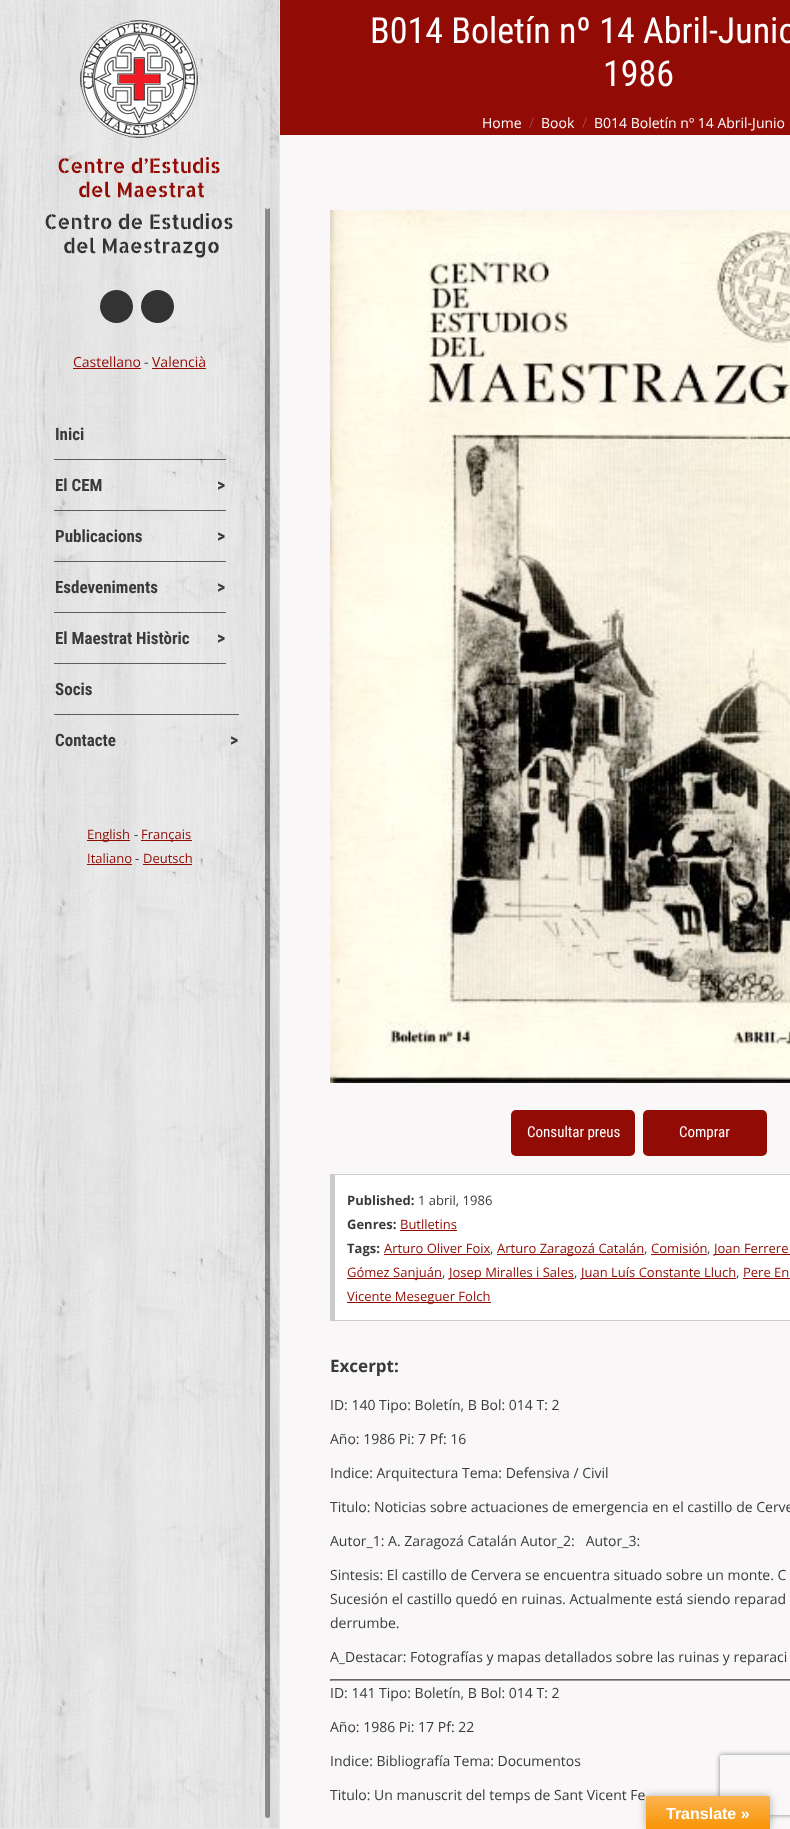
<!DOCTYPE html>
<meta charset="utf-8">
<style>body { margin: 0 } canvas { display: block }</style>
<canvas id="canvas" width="790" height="1829"></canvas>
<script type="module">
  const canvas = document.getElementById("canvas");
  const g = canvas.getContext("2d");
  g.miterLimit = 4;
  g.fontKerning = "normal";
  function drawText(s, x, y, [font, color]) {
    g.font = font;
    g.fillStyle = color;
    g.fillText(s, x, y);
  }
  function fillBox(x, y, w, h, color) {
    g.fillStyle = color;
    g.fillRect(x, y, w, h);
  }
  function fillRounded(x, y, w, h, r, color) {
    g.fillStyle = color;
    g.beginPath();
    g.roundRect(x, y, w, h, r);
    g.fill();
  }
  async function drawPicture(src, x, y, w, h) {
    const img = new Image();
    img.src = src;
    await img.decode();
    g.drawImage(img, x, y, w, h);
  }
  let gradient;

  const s1 = ["14px Open Sans", "#920C05"];
  const s2 = ["14px Open Sans", "#3A3A3A"];
  const s3 = ["bold 17px Roboto Condensed", "#3A3A3A"];
  const s4 = ["bold 18px Roboto Condensed", "#3A3A3A"];
  const s5 = ["13px Open Sans", "#920C05"];
  const s6 = ["13px Open Sans", "#3A3A3A"];
  const s7 = ["36px Roboto Condensed", "#FFFFFF"];
  const s8 = ["14px Open Sans", "#FFFFFF"];
  const s9 = ["13px Roboto", "#AE4844"];
  const s10 = ["15px Roboto Condensed", "#FFFFFF"];
  const s11 = ["bold 13px Open Sans", "#3A3A3A"];
  const s12 = ["bold 17px Open Sans", "#3A3A3A"];
  const s13 = ["bold 16px Liberation Sans", "#FFFFFF"];

  fillBox(0, 0, 790, 1829, "#F9F7F8");
  await drawPicture("pic1.png", 0, 0, 279, 1828);
  fillBox(279, 0, 1, 1829, "#E7E7E7");
  fillBox(0, 1828, 280, 1, "#E7E7E7");
  await drawPicture("pic2.png", 45, 20, 188, 238);
  g.fillStyle = "#333333";
  g.beginPath();
  g.arc(116.5, 306.5, 16.5, 0, Math.PI * 2);
  g.fill();
  g.beginPath();
  g.arc(157.5, 306.5, 16.5, 0, Math.PI * 2);
  g.fill();
  drawText("Castellano", 73, 367, s1);
  fillBox(73, 368, 68, 1, "#920C05");
  drawText("-", 144, 367, s2);
  drawText("Valencià", 152, 367, s1);
  fillBox(152, 368, 54, 1, "#920C05");
  drawText("Inici", 55, 440, s3);
  fillBox(54, 459, 172, 1, "rgba(66, 66, 66, 0.84)");
  drawText("El CEM", 55, 491, s3);
  await drawPicture("pic3.png", 110, 483, 4, 8);
  drawText(">", 217, 491, s4);
  fillBox(54, 510, 172, 1, "rgba(66, 66, 66, 0.84)");
  drawText("Publicacions", 55, 542, s3);
  await drawPicture("pic4.png", 150, 534, 4, 8);
  drawText(">", 217, 542, s4);
  fillBox(54, 561, 172, 1, "rgba(66, 66, 66, 0.84)");
  drawText("Esdeveniments", 55, 593, s3);
  await drawPicture("pic5.png", 165, 585, 4, 8);
  drawText(">", 217, 593, s4);
  fillBox(54, 612, 172, 1, "rgba(66, 66, 66, 0.84)");
  drawText("El Maestrat Històric", 55, 644, s3);
  await drawPicture("pic6.png", 197, 636, 4, 8);
  drawText(">", 217, 644, s4);
  fillBox(54, 663, 172, 1, "rgba(66, 66, 66, 0.84)");
  drawText("Socis", 55, 695, s3);
  fillBox(54, 714, 185, 1, "rgba(66, 66, 66, 0.84)");
  drawText("Contacte", 55, 746, s3);
  await drawPicture("pic7.png", 123, 738, 4, 8);
  drawText(">", 230, 746, s4);
  fillBox(87, 840, 43, 1, "#920C05");
  drawText("English", 87, 839, s5);
  drawText("-", 134, 839, s6);
  fillBox(141, 840, 51, 1, "#920C05");
  drawText("Français", 141, 839, s5);
  drawText("Italiano", 87, 863, s5);
  fillBox(87, 864, 45, 1, "#920C05");
  drawText("-", 135, 863, s6);
  drawText("Deutsch", 143, 863, s5);
  fillBox(143, 864, 49, 1, "#920C05");
  fillRounded(265, 10, 5, 1808, 2.5, "rgba(0, 0, 0, 0.4)");
  fillRounded(265, 10, 5, 199, 2.5, "rgba(255, 255, 255, 0.75)");
  fillBox(280, 0, 510, 135, "#920B05");
  drawText("B014 Boletín nº 14 Abril-Junio", 370, 43, s7);
  drawText("1986", 603, 86, s7);
  drawText("Home", 482, 128, s8);
  drawText("/", 529, 127, s9);
  drawText("Book", 541, 128, s8);
  drawText("/", 582, 127, s9);
  drawText("B014 Boletín nº 14 Abril-Junio", 594, 128, s8);
  await drawPicture("pic8.png", 330, 210, 460, 873);
  fillRounded(511, 1110, 124, 46, 5, "#920C05");
  drawText("Consultar preus", 527, 1137, s10);
  fillRounded(643, 1110, 124, 46, 5, "#920C05");
  drawText("Comprar", 679, 1137, s10);
  fillBox(335, 1175, 455, 145, "#FFFFFF");
  fillBox(330, 1174, 460, 1, "#CCCCCC");
  fillBox(330, 1320, 460, 1, "#CCCCCC");
  fillBox(330, 1174, 5, 147, "#CCCCCC");
  drawText("Published:", 347, 1205, s11);
  drawText("1 abril, 1986", 418, 1205, s6);
  drawText("Genres:", 347, 1229, s11);
  drawText("Butlletins", 400, 1229, s5);
  fillBox(400, 1230, 57, 1, "#920C05");
  drawText("Tags:", 347, 1253, s11);
  drawText("Arturo Oliver Foix", 384, 1253, s5);
  drawText(",", 490, 1253, s6);
  fillBox(384, 1254, 106, 1, "#920C05");
  fillBox(497, 1254, 147, 1, "#920C05");
  drawText("Arturo Zaragozá Catalán", 497, 1253, s5);
  drawText(",", 644, 1253, s6);
  drawText("Comisión", 651, 1253, s5);
  drawText(",", 707, 1253, s6);
  fillBox(651, 1254, 56, 1, "#920C05");
  fillBox(714, 1254, 76, 1, "#920C05");
  drawText("Joan Ferrere", 714, 1253, s5);
  fillBox(347, 1278, 95, 1, "#920C05");
  drawText("Gómez Sanjuán", 347, 1277, s5);
  drawText(",", 442, 1277, s6);
  fillBox(449, 1278, 125, 1, "#920C05");
  drawText("Josep Miralles i Sales", 449, 1277, s5);
  drawText(",", 574, 1277, s6);
  fillBox(581, 1278, 155, 1, "#920C05");
  drawText("Juan Luís Constante Lluch", 581, 1277, s5);
  drawText(",", 736, 1277, s6);
  fillBox(743, 1278, 47, 1, "#920C05");
  drawText("Pere En", 743, 1277, s5);
  fillBox(347, 1302, 144, 1, "#920C05");
  drawText("Vicente Meseguer Folch", 347, 1301, s5);
  drawText("Excerpt:", 330, 1372, s12);
  drawText("ID: 140 Tipo: Boletín, B Bol: 014 T: 2", 330, 1410, s2);
  drawText("Año: 1986 Pi: 7 Pf: 16", 330, 1444, s2);
  drawText("Indice: Arquitectura Tema: Defensiva / Civil", 330, 1478, s2);
  drawText("Titulo: Noticias sobre actuaciones de emergencia en el castillo de Cerve", 330, 1512, s2);
  drawText("Autor_1: A. Zaragozá Catalán Autor_2:   Autor_3:", 330, 1546, s2);
  drawText("Sintesis: El castillo de Cervera se encuentra situado sobre un monte. C", 330, 1580, s2);
  drawText("Sucesión el castillo quedó en ruinas. Actualmente está siendo reparad", 330, 1604, s2);
  drawText("derrumbe.", 330, 1628, s2);
  drawText("A_Destacar: Fotografías y mapas detallados sobre las ruinas y reparaci", 330, 1662, s2);
  fillBox(330, 1679, 460, 1, "#666666");
  fillBox(330, 1680, 460, 1, "#999999");
  fillBox(330, 1679, 1, 2, "#666666");
  drawText("ID: 141 Tipo: Boletín, B Bol: 014 T: 2", 330, 1698, s2);
  drawText("Año: 1986 Pi: 17 Pf: 22", 330, 1732, s2);
  drawText("Indice: Bibliografía Tema: Documentos", 330, 1766, s2);
  drawText("Titulo: Un manuscrit del temps de Sant Vicent Fe", 330, 1800, s2);
  g.fillStyle = "rgba(0, 0, 0, 0.3)";
  g.filter = "blur(4.5px)";
  g.beginPath();
  g.rect(646, 1796, 124, 33);
  g.fill();
  g.filter = "none";
  g.save();
  g.beginPath();
  g.moveTo(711, 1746);
  g.lineTo(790, 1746);
  g.lineTo(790, 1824);
  g.lineTo(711, 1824);
  g.closePath();
  g.moveTo(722, 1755);
  g.lineTo(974, 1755);
  g.bezierCurveTo(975, 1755, 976, 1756, 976, 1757);
  g.lineTo(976, 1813);
  g.bezierCurveTo(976, 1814, 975, 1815, 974, 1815);
  g.lineTo(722, 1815);
  g.bezierCurveTo(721, 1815, 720, 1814, 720, 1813);
  g.lineTo(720, 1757);
  g.bezierCurveTo(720, 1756, 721, 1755, 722, 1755);
  g.closePath();
  g.clip("evenodd");
  g.fillStyle = "#808080";
  g.filter = "blur(2.5px)";
  g.beginPath();
  g.roundRect(720, 1755, 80, 60, 2);
  g.fill();
  g.filter = "none";
  g.restore();
  gradient = g.createLinearGradient(708, 1796, 708, 1829);
  gradient.addColorStop(0, "#FBB450");
  gradient.addColorStop(1, "#F89406");
  g.fillStyle = gradient;
  g.fillRect(646, 1796, 124, 33);
  drawText("Translate »", 666, 1819, s13);
</script>
